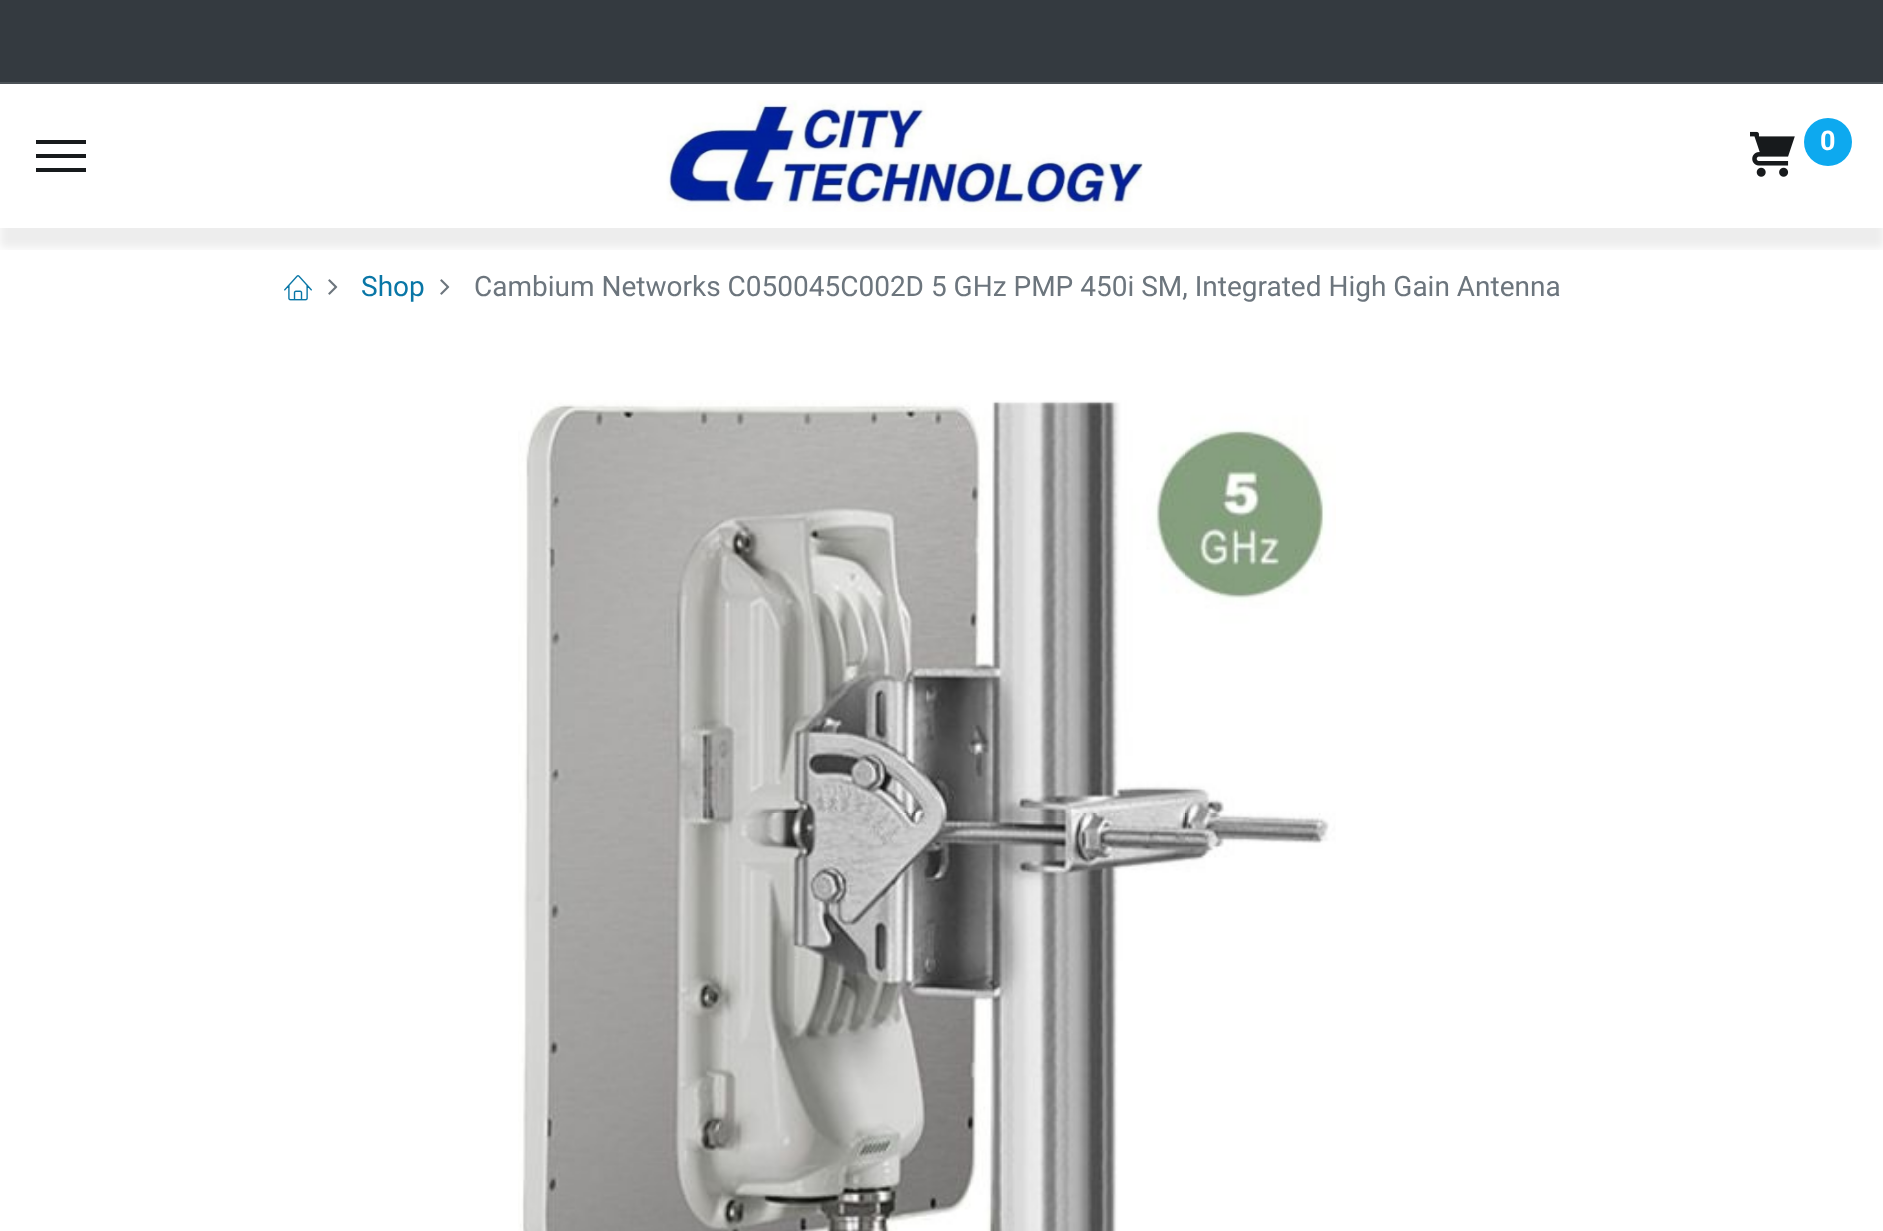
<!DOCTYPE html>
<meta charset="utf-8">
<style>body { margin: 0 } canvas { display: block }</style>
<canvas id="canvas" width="1883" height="1231"></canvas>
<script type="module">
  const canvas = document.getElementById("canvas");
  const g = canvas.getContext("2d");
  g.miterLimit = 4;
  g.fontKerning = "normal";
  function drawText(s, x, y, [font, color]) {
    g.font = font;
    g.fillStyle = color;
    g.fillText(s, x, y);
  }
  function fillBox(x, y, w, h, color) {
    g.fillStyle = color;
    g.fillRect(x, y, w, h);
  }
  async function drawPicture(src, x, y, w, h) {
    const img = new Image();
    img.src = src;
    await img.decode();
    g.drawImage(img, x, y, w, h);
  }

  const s1 = ["bold 27px Roboto", "#FFFFFF"];
  const s2 = ["28px Roboto", "#0976A6"];
  const s3 = ["28px Roboto", "#6C757D"];

  fillBox(0, 0, 1883, 1231, "#FFFFFF");
  fillBox(0, 0, 1883, 82, "#343A40");
  fillBox(0, 82, 1883, 2, "#4C5257");
  g.save();
  g.beginPath();
  g.rect(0, 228, 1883, 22);
  g.clip();
  g.fillStyle = "rgba(0, 0, 0, 0.07)";
  g.filter = "blur(4px)";
  g.beginPath();
  g.rect(0, 104, 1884, 144);
  g.fill();
  g.filter = "none";
  g.restore();
  fillBox(36, 140, 50, 4, "#171A1C");
  fillBox(36, 154, 50, 4, "#171A1C");
  fillBox(36, 168, 50, 4, "#171A1C");
  await drawPicture("pic1.png", 666, 100, 477, 112);
  await drawPicture("pic2.png", 1750, 131, 45, 46);
  g.fillStyle = "#0DA9EF";
  g.beginPath();
  g.arc(1828, 142, 24, 0, Math.PI * 2);
  g.fill();
  drawText("0", 1820, 150, s1);
  await drawPicture("pic3.png", 284, 275, 28, 26);
  await drawPicture("pic4.png", 328, 279, 10, 16);
  drawText("Shop", 361, 296, s2);
  await drawPicture("pic4.png", 440, 279, 10, 16);
  drawText("Cambium Networks C050045C002D 5 GHz PMP 450i SM, Integrated High Gain Antenna", 474, 296, s3);
  await drawPicture("pic5.png", 518, 400, 818, 831);
</script>
